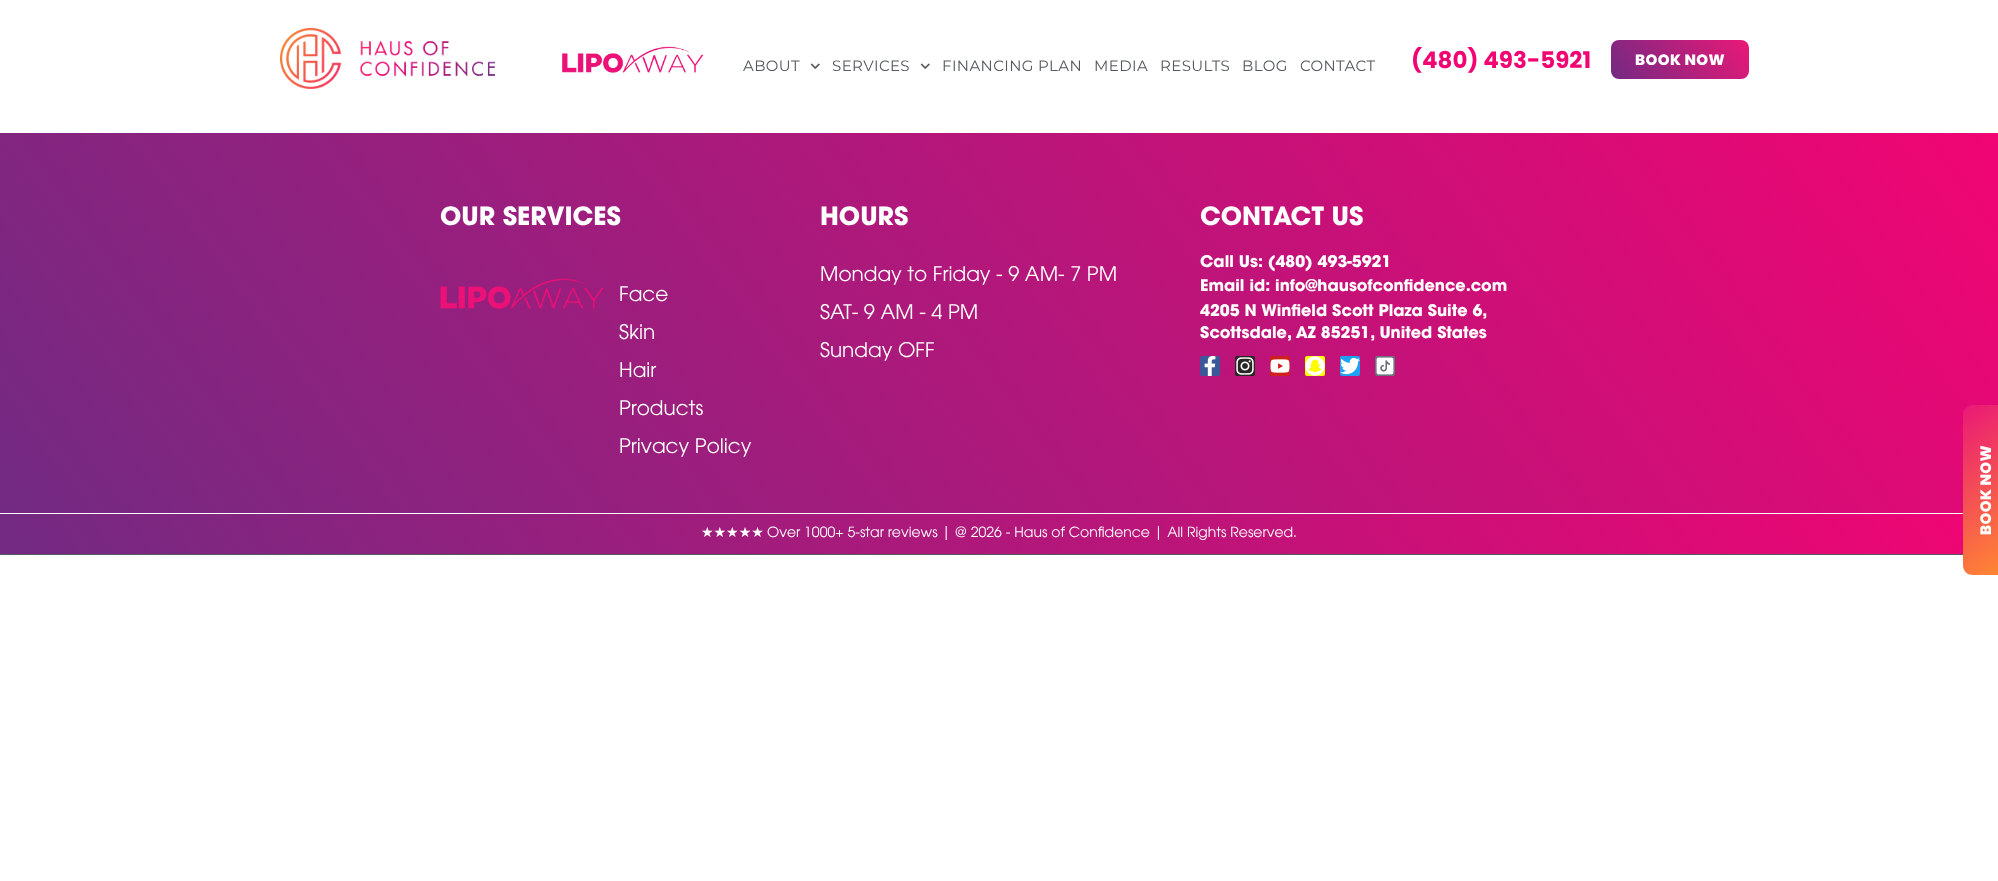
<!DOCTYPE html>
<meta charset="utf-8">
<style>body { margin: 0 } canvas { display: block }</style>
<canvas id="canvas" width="1998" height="881"></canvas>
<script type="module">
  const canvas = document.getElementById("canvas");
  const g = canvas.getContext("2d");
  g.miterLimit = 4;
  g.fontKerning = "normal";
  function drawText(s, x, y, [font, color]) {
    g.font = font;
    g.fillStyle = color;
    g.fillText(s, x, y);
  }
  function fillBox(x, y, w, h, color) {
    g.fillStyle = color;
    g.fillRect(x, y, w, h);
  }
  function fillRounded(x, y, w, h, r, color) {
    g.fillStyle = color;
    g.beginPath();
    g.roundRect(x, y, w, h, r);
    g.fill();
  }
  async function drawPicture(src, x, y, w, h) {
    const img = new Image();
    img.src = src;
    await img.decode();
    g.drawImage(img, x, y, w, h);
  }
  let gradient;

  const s1 = ["15px Montserrat", "#54595F"];
  const s2 = ["bold 23px Poppins", "#F00573"];
  const s3 = ["800 15px Poppins", "#FFFFFF"];
  const s4 = ["bold 25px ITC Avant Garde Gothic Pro", "#FFFFFF"];
  const s5 = ["300 20px ITC Avant Garde Gothic Pro", "#FFFFFF"];
  const s6 = ["bold 16px ITC Avant Garde Gothic Pro", "#FFFFFF"];
  const s7 = ["14px DejaVu Sans", "#FFFFFF"];
  const s8 = ["300 14px ITC Avant Garde Gothic Pro", "#FFFFFF"];

  fillBox(0, 0, 1998, 881, "#FFFFFF");
  await drawPicture("pic1.png", 280, 28, 215, 61);
  await drawPicture("pic2.png", 562, 46, 142, 27);
  g.letterSpacing = "0.4px";
  drawText("ABOUT", 743, 71, s1);
  await drawPicture("pic3.png", 810, 63, 10, 6);
  drawText("SERVICES", 832, 71, s1);
  await drawPicture("pic3.png", 920, 63, 10, 6);
  drawText("FINANCING PLAN", 942, 71, s1);
  drawText("MEDIA", 1094, 71, s1);
  drawText("RESULTS", 1160, 71, s1);
  drawText("BLOG", 1242, 71, s1);
  drawText("CONTACT", 1300, 71, s1);
  g.letterSpacing = "0px";
  drawText("(480) 493-5921", 1411, 68, s2);
  gradient = g.createLinearGradient(1735, 20, 1625, 99);
  gradient.addColorStop(0, "#EA1877");
  gradient.addColorStop(1, "#722A82");
  g.fillStyle = gradient;
  g.beginPath();
  g.roundRect(1611, 40, 138, 39, 8);
  g.fill();
  g.letterSpacing = "0.4px";
  drawText("BOOK NOW", 1635, 65, s3);
  gradient = g.createLinearGradient(1743, -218, 255, 864);
  gradient.addColorStop(0, "#F00573");
  gradient.addColorStop(1, "#722A82");
  g.fillStyle = gradient;
  g.fillRect(0, 133, 1998, 380);
  gradient = g.createLinearGradient(1934, 426, 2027, 555);
  gradient.addColorStop(0, "#EA1877");
  gradient.addColorStop(1, "#FF8732");
  g.fillStyle = gradient;
  g.beginPath();
  g.moveTo(1963, 565);
  g.lineTo(1963, 415);
  g.bezierCurveTo(1963, 410, 1967, 405, 1973, 405);
  g.lineTo(1998, 405);
  g.lineTo(1998, 575);
  g.lineTo(1973, 575);
  g.bezierCurveTo(1967, 575, 1963, 571, 1963, 565);
  g.closePath();
  g.fill();
  g.fillStyle = "#FFFFFF";
  g.save();
  g.translate(1991, 535);
  g.rotate(-90 * Math.PI / 180);
  g.fillText("BOOK NOW", 0, 0);
  g.restore();
  g.letterSpacing = "0px";
  drawText("OUR SERVICES", 440, 225, s4);
  await drawPicture("pic4.png", 440, 278, 164, 31);
  drawText("Face", 619, 301, s5);
  drawText("Skin", 619, 339, s5);
  drawText("Hair", 619, 377, s5);
  drawText("Products", 619, 415, s5);
  drawText("Privacy Policy", 619, 453, s5);
  drawText("HOURS", 820, 225, s4);
  drawText("Monday to Friday - 9 AM- 7 PM", 820, 281, s5);
  drawText("SAT- 9 AM - 4 PM", 820, 319, s5);
  drawText("Sunday OFF", 820, 357, s5);
  drawText("CONTACT US", 1200, 225, s4);
  drawText("Call Us: (480) 493-5921", 1200, 267, s6);
  drawText("Email id: info@hausofconfidence.com", 1200, 291, s6);
  drawText("4205 N Winfield Scott Plaza Suite 6,", 1200, 316, s6);
  drawText("Scottsdale, AZ 85251, United States", 1200, 338, s6);
  fillRounded(1200, 356, 20, 20, 2, "#3B5998");
  await drawPicture("pic5.png", 1204, 356, 12, 20);
  fillRounded(1235, 356, 20, 20, 2, "#262626");
  await drawPicture("pic6.png", 1236, 357, 18, 18);
  fillRounded(1270, 356, 20, 20, 2, "#CD201F");
  await drawPicture("pic7.png", 1270, 359, 20, 14);
  fillRounded(1305, 356, 20, 20, 2, "#FFFC00");
  await drawPicture("pic8.png", 1305, 356, 20, 20);
  fillRounded(1340, 356, 20, 20, 2, "#1DA1F2");
  await drawPicture("pic9.png", 1340, 357, 20, 18);
  fillRounded(1375, 356, 20, 20, 2, "#69727D");
  await drawPicture("pic10.png", 1376, 357, 18, 18);
  gradient = g.createLinearGradient(1662, 52, 336, 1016);
  gradient.addColorStop(0, "#F00573");
  gradient.addColorStop(1, "#722A82");
  g.fillStyle = gradient;
  g.fillRect(0, 514, 1963, 40);
  fillBox(0, 554, 1963, 1, "#54595F");
  drawText("★★★★★", 701, 537, s7);
  drawText("Over 1000+ 5-star reviews | @ 2026 - Haus of Confidence | All Rights Reserved.", 767, 537, s8);
</script>
